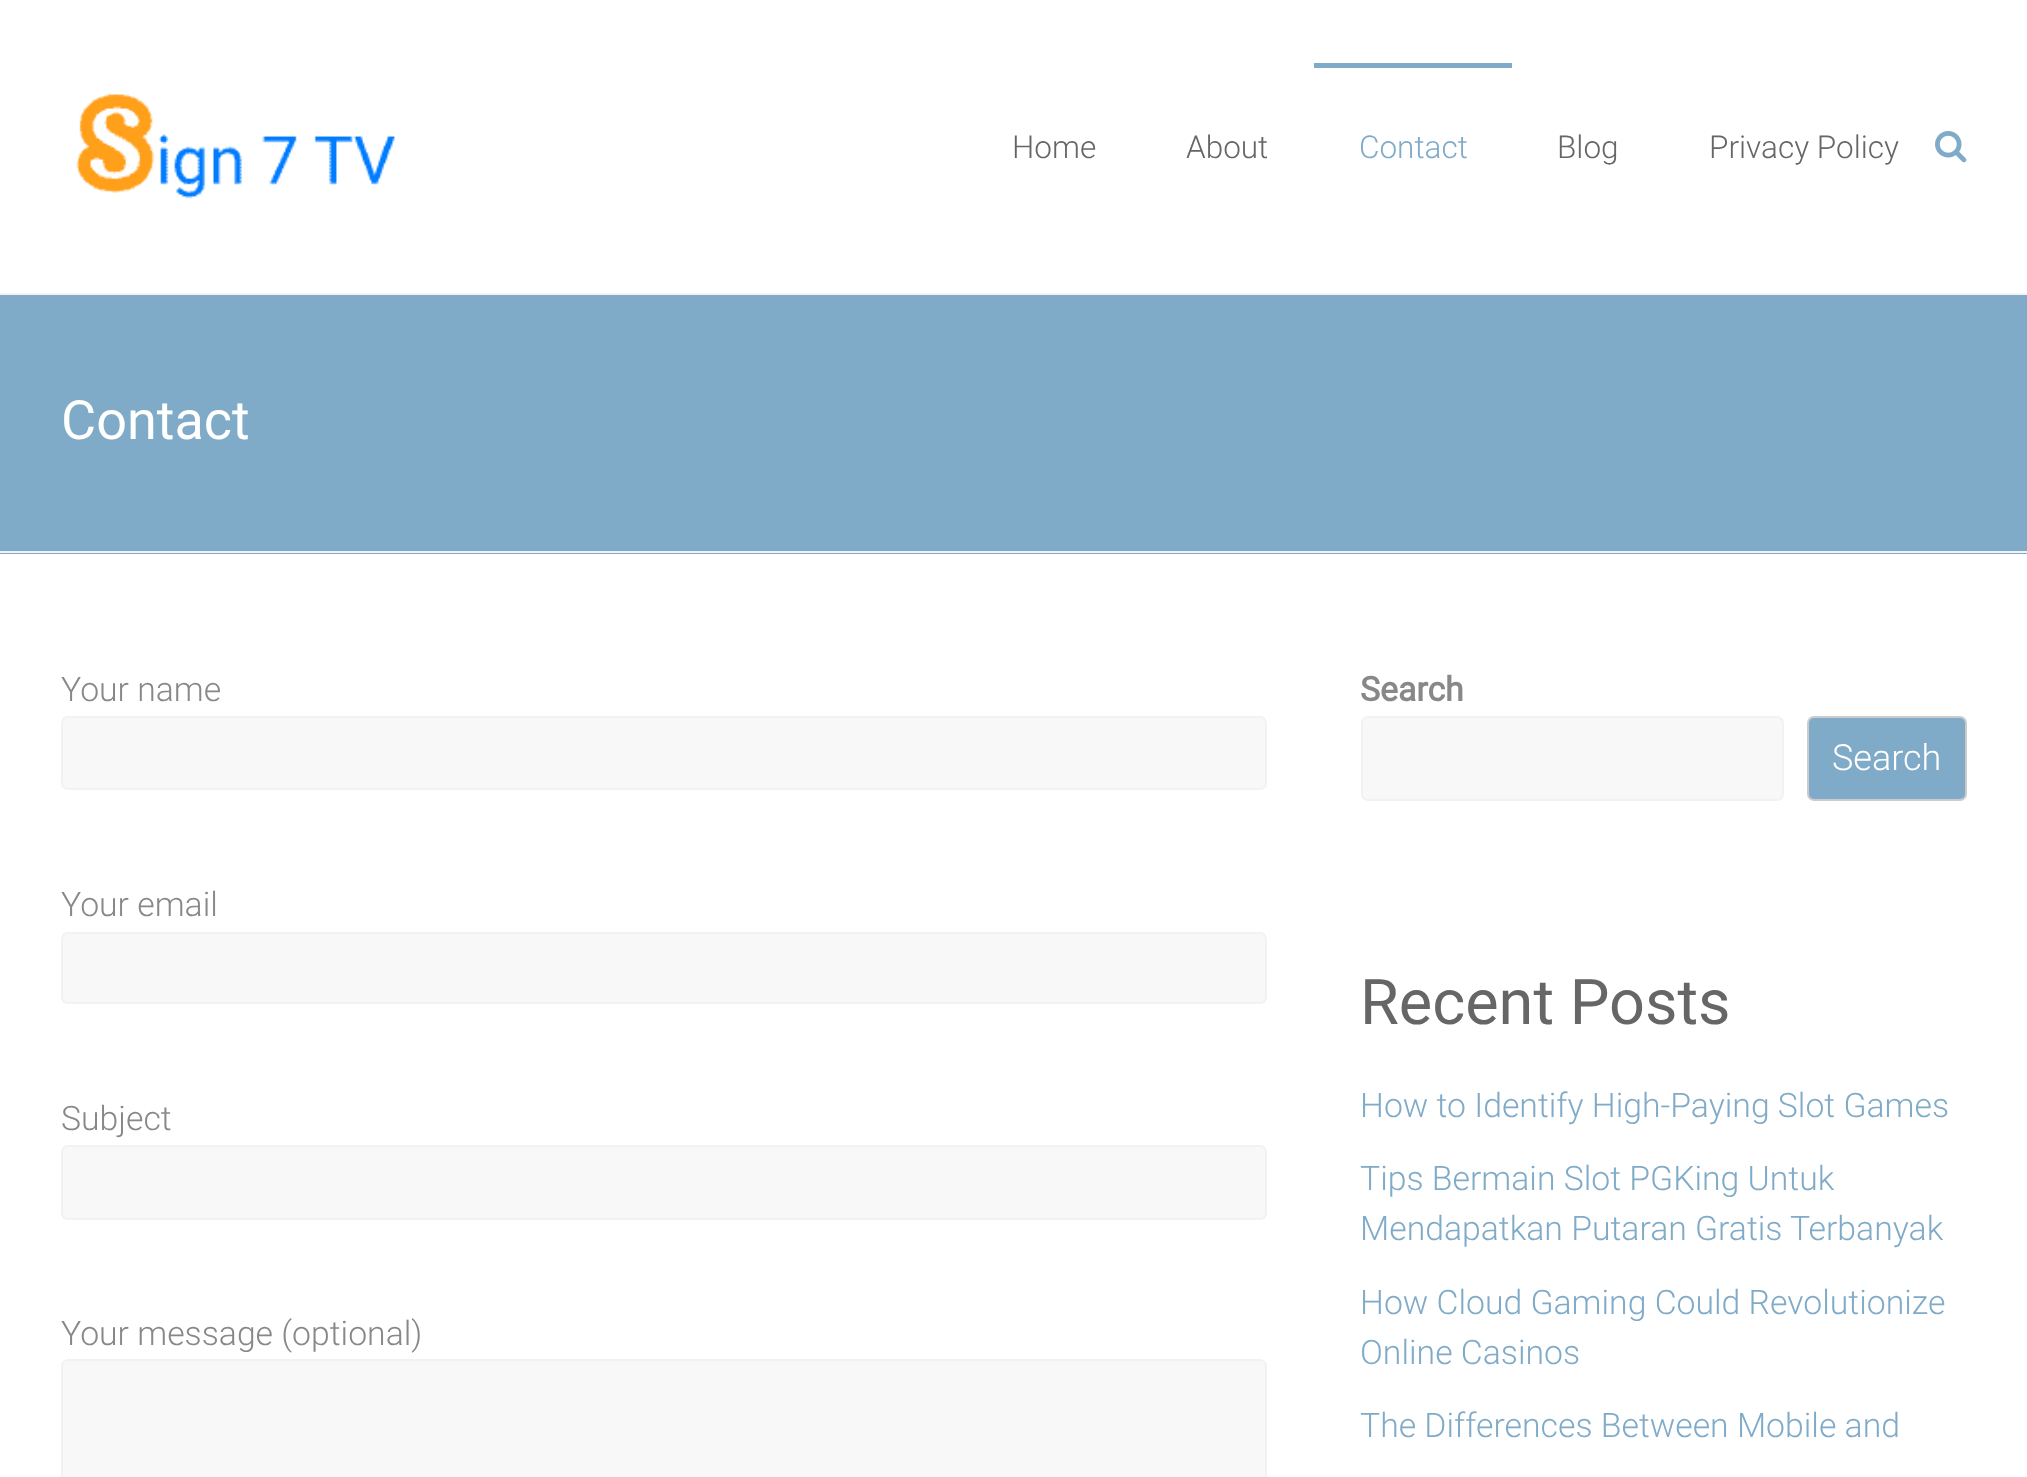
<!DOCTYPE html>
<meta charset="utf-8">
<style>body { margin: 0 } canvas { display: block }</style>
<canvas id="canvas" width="2027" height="1477"></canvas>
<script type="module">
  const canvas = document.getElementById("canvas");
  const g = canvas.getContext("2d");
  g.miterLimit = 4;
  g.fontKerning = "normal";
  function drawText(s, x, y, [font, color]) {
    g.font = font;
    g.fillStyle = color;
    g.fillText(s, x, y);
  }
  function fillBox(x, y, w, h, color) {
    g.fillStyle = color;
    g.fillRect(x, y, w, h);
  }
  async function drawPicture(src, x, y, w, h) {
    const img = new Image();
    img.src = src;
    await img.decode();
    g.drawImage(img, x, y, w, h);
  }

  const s1 = ["300 31.5px Roboto", "#666666"];
  const s2 = ["300 31.5px Roboto", "#80ABC8"];
  const s3 = ["54px Roboto", "#FFFFFF"];
  const s4 = ["300 33.75px Roboto", "#888888"];
  const s5 = ["bold 33.75px Roboto", "#888888"];
  const s6 = ["300 36px Roboto", "#FFFFFF"];
  const s7 = ["63px Roboto", "#666666"];
  const s8 = ["300 33.75px Roboto", "#80ABC8"];

  fillBox(0, 0, 2027, 1477, "#FFFFFF");
  fillBox(0, 293, 2027, 2, "#F2F2F2");
  await drawPicture("pic1.png", 76, 94, 319, 105);
  drawText("Home", 1012, 158, s1);
  drawText("About", 1186, 158, s1);
  fillBox(1314, 63, 198, 5, "#80ABC8");
  drawText("Contact", 1359, 158, s2);
  drawText("Blog", 1557, 158, s1);
  drawText("Privacy Policy", 1709, 158, s1);
  await drawPicture("pic2.png", 1935, 131, 32, 32);
  fillBox(0, 295, 2027, 259, "#80ABC8");
  fillBox(0, 551, 2027, 2, "#F2F2F2");
  drawText("Contact", 61, 439, s3);
  drawText("Your name", 61, 701, s4);
  g.fillStyle = "#F8F8F8";
  g.beginPath();
  g.roundRect(62, 717, 1204, 72, 6);
  g.fill();
  g.strokeStyle = "#F2F2F2";
  g.lineWidth = 2;
  g.stroke();
  drawText("Your email", 61, 916, s4);
  g.fillStyle = "#F8F8F8";
  g.beginPath();
  g.roundRect(62, 933, 1204, 70, 6);
  g.fill();
  g.stroke();
  drawText("Subject", 61, 1130, s4);
  g.fillStyle = "#F8F8F8";
  g.beginPath();
  g.roundRect(62, 1146, 1204, 73, 6);
  g.fill();
  g.stroke();
  drawText("Your message (optional)", 61, 1345, s4);
  g.fillStyle = "#F8F8F8";
  g.beginPath();
  g.roundRect(62, 1360, 1204, 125, 6);
  g.fill();
  g.stroke();
  drawText("Search", 1360, 701, s5);
  g.fillStyle = "#F8F8F8";
  g.beginPath();
  g.roundRect(1362, 717, 421, 83, 6);
  g.fill();
  g.stroke();
  g.fillStyle = "#80ABC8";
  g.beginPath();
  g.roundRect(1808, 717, 158, 83, 6);
  g.fill();
  g.strokeStyle = "#CCCCCC";
  g.stroke();
  drawText("Search", 1832, 770, s6);
  drawText("Recent Posts", 1360, 1024, s7);
  drawText("How to Identify High-Paying Slot Games", 1360, 1117, s8);
  drawText("Tips Bermain Slot PGKing Untuk", 1360, 1190, s8);
  drawText("Mendapatkan Putaran Gratis Terbanyak", 1360, 1240, s8);
  drawText("How Cloud Gaming Could Revolutionize", 1360, 1314, s8);
  drawText("Online Casinos", 1360, 1364, s8);
  drawText("The Differences Between Mobile and", 1360, 1437, s8);
</script>
